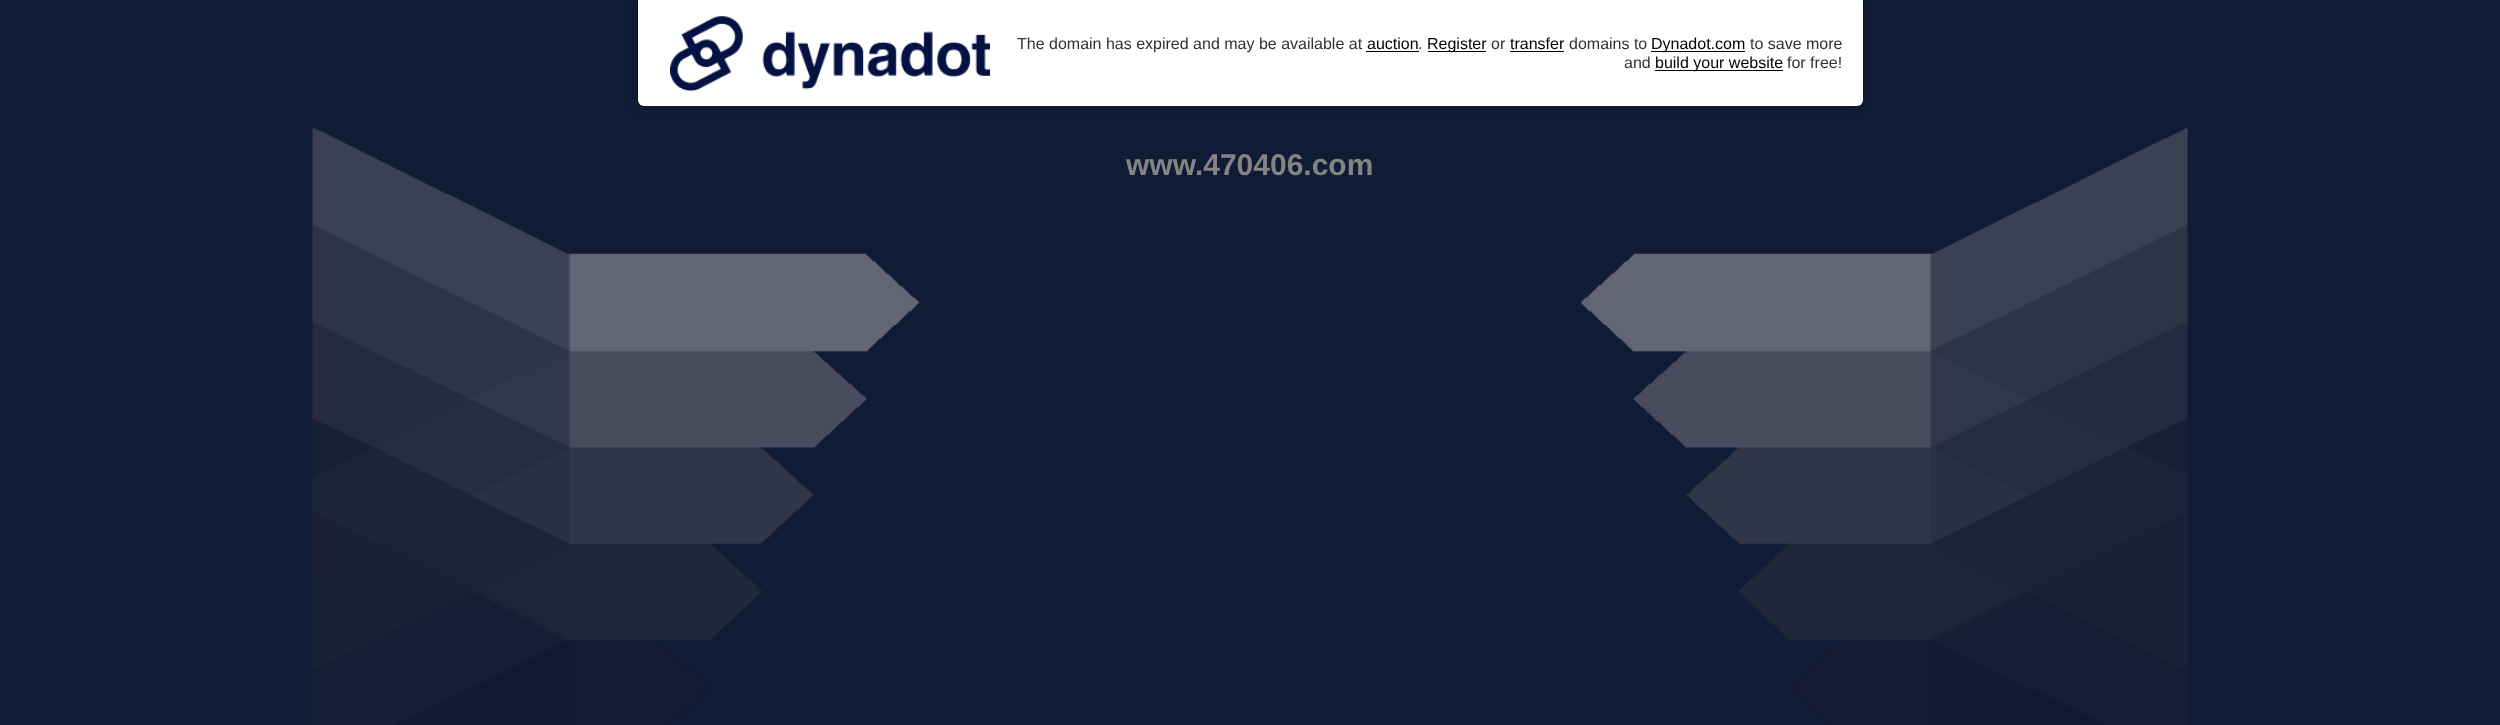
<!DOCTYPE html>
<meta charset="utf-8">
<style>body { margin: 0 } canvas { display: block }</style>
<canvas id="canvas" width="2500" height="725"></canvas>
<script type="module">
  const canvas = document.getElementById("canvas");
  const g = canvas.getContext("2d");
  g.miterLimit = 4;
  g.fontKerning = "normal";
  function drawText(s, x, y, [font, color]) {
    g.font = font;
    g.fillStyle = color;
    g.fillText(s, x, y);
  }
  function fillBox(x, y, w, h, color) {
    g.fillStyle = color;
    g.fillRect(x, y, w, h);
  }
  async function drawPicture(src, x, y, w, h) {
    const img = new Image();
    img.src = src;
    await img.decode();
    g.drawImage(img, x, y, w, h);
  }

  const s1 = ["16px Liberation Sans", "#313131"];
  const s2 = ["16px Liberation Sans", "#000000"];
  const s3 = ["bold 30px Liberation Sans", "#848484"];

  fillBox(0, 0, 2500, 725, "#101C36");
  g.fillStyle = "rgba(0, 0, 0, 0.2)";
  g.filter = "blur(4px)";
  g.beginPath();
  g.roundRect(638, 1, 1225, 107, 6);
  g.fill();
  g.filter = "none";
  g.fillStyle = "#FFFFFF";
  g.beginPath();
  g.roundRect(638, 0, 1225, 106, [0, 0, 6, 6]);
  g.fill();
  await drawPicture("pic1.png", 670, 16, 320, 76);
  drawText("The domain has expired and may be available at", 1017, 49, s1);
  drawText("auction", 1367, 49, s2);
  fillBox(1366, 51, 53, 1, "#000000");
  drawText(".", 1418, 49, s1);
  fillBox(1428, 51, 58, 1, "#000000");
  drawText("Register", 1427, 49, s2);
  drawText("or", 1491, 49, s1);
  drawText("transfer", 1510, 49, s2);
  fillBox(1510, 51, 54, 1, "#000000");
  drawText("domains to", 1569, 49, s1);
  fillBox(1651, 51, 94, 1, "#000000");
  drawText("Dynadot.com", 1651, 49, s2);
  drawText("to save more", 1750, 49, s1);
  drawText("and", 1624, 68, s1);
  fillBox(1655, 70, 128, 1, "#000000");
  drawText("build your website", 1655, 68, s2);
  drawText("for free!", 1787, 68, s1);
  await drawPicture("pic2.png", 312, 127, 1876, 598);
  drawText("www.470406.com", 1126, 175, s3);
</script>
